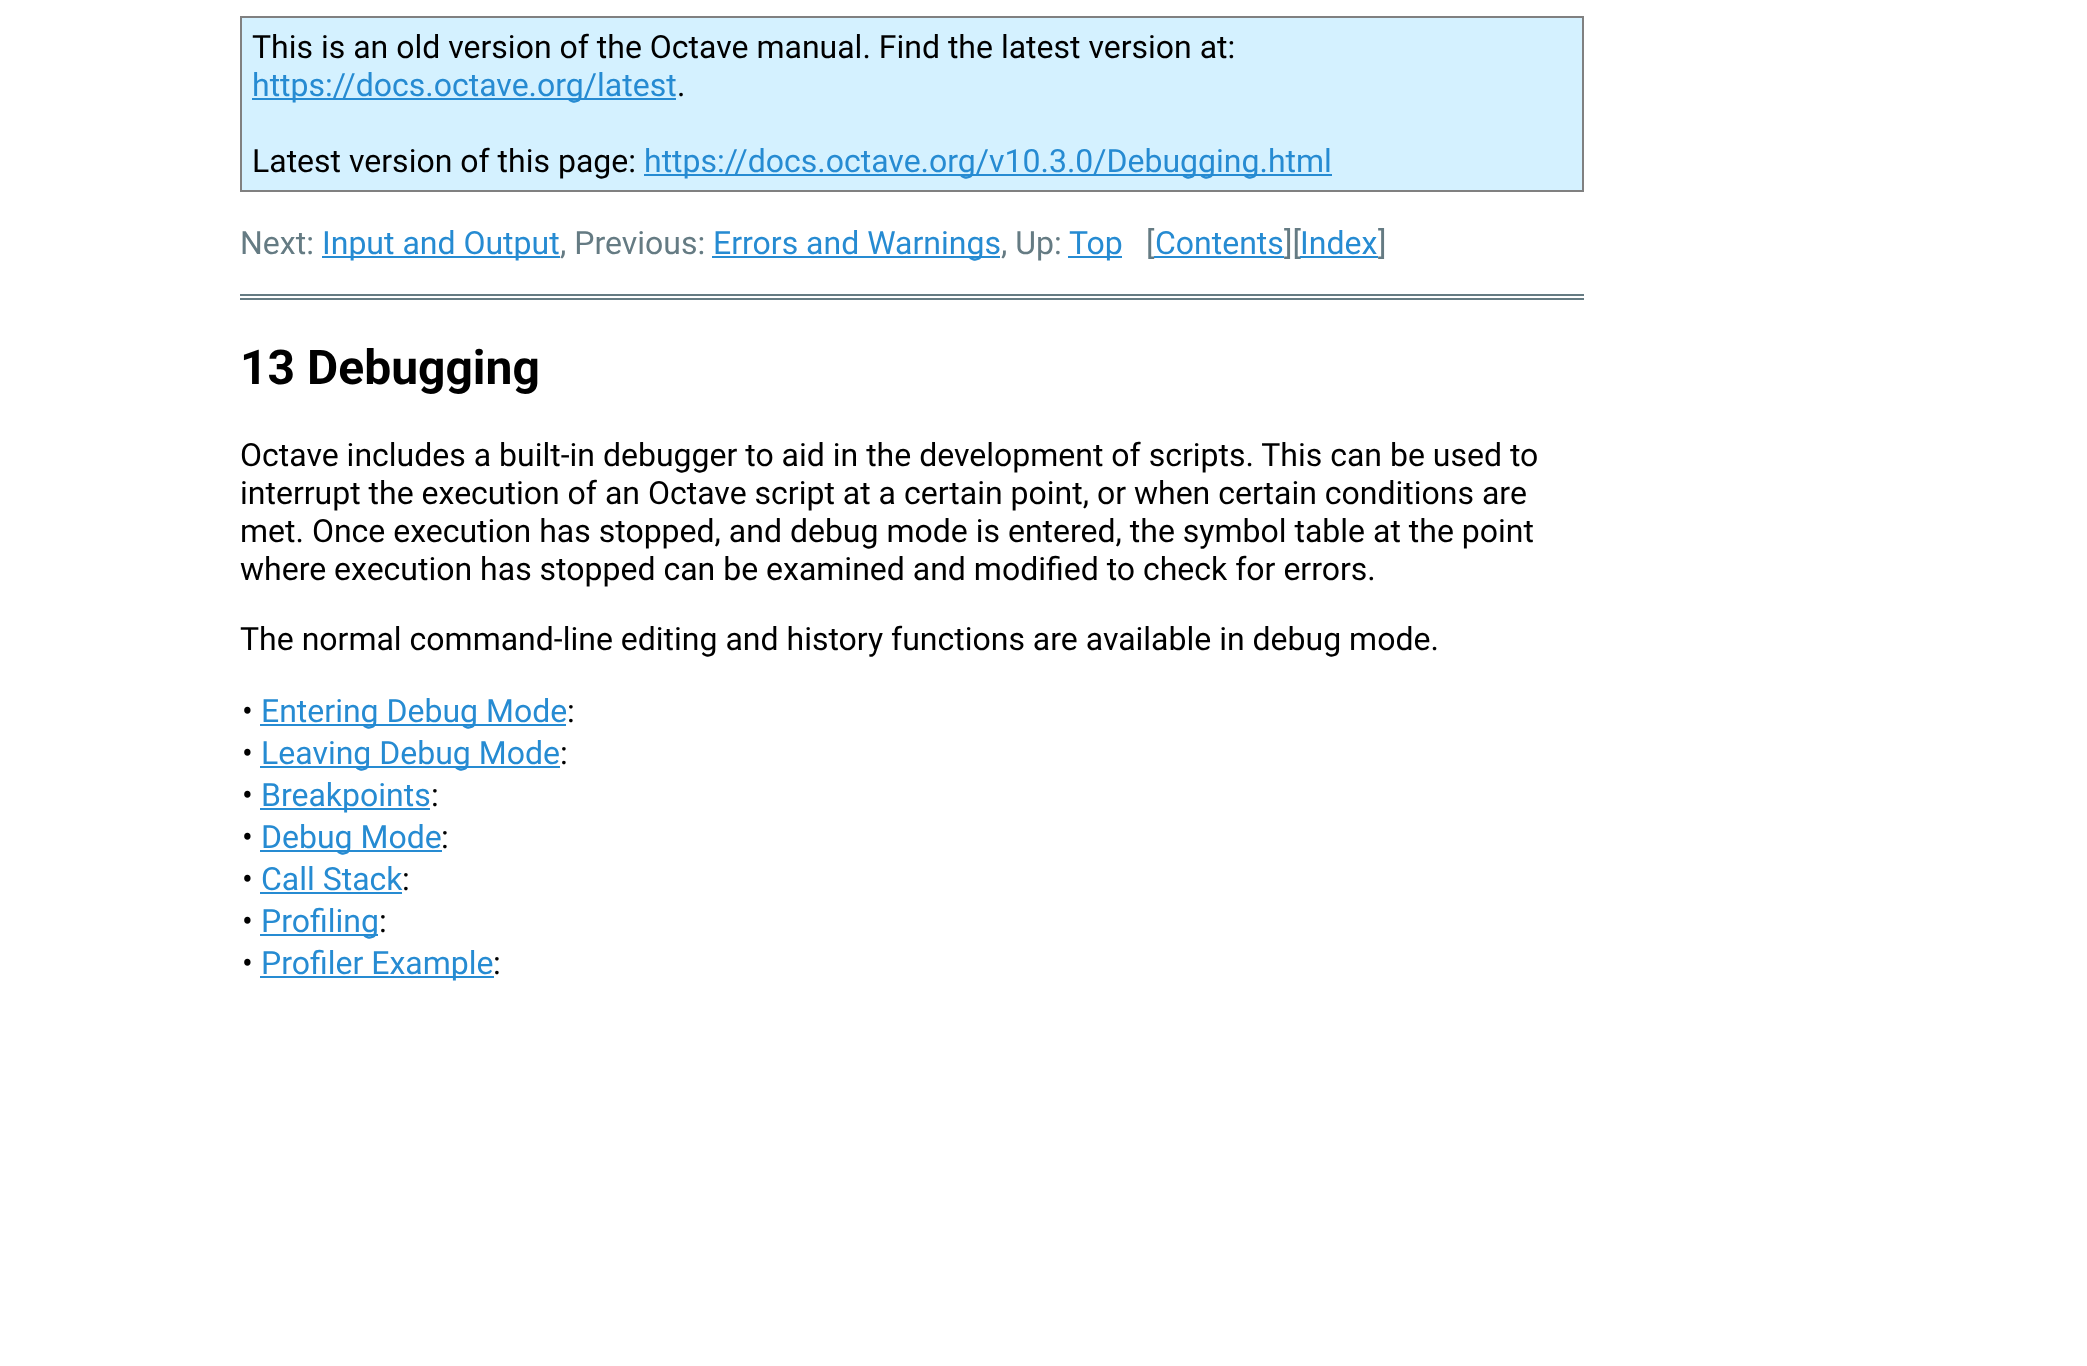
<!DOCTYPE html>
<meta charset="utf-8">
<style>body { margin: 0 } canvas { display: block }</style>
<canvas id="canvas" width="2087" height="1366"></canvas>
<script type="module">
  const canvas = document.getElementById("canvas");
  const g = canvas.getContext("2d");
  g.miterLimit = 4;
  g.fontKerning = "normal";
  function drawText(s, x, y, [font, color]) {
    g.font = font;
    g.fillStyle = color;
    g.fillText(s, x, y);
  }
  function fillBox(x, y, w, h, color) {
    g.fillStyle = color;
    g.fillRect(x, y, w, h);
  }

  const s1 = ["32px Roboto", "#000000"];
  const s2 = ["32px Roboto", "#268BD2"];
  const s3 = ["32px Roboto", "#657B83"];
  const s4 = ["bold 48px Roboto", "#000000"];

  fillBox(0, 0, 2087, 1366, "#FFFFFF");
  g.fillStyle = "#D4F1FF";
  g.beginPath();
  g.rect(241, 17, 1342, 174);
  g.fill();
  g.strokeStyle = "#808080";
  g.lineWidth = 2;
  g.stroke();
  drawText("This is an old version of the Octave manual. Find the latest version at:", 252, 58, s1);
  fillBox(252, 98, 424, 2, "#268BD2");
  drawText("https://docs.octave.org/latest", 252, 96, s2);
  drawText(".", 677, 96, s1);
  drawText("Latest version of this page:", 252, 172, s1);
  fillBox(644, 174, 688, 2, "#268BD2");
  drawText("https://docs.octave.org/v10.3.0/Debugging.html", 644, 172, s2);
  drawText("Next:", 240, 254, s3);
  fillBox(322, 256, 238, 2, "#268BD2");
  drawText("Input and Output", 322, 254, s2);
  drawText(", Previous:", 560, 254, s3);
  fillBox(712, 256, 288, 2, "#268BD2");
  drawText("Errors and Warnings", 713, 254, s2);
  drawText(", Up:", 1001, 254, s3);
  fillBox(1068, 256, 54, 2, "#268BD2");
  drawText("Top", 1069, 254, s2);
  drawText("[", 1146, 254, s3);
  drawText("Contents", 1155, 254, s2);
  fillBox(1154, 256, 130, 2, "#268BD2");
  drawText("][", 1284, 254, s3);
  drawText("Index", 1300, 254, s2);
  fillBox(1300, 256, 78, 2, "#268BD2");
  drawText("]", 1378, 254, s3);
  fillBox(240, 294, 1344, 2, "#657B83");
  fillBox(240, 298, 1344, 2, "#657B83");
  drawText("13 Debugging", 240, 384, s4);
  drawText("Octave includes a built-in debugger to aid in the development of scripts. This can be used to", 240, 466, s1);
  drawText("interrupt the execution of an Octave script at a certain point, or when certain conditions are", 240, 504, s1);
  drawText("met. Once execution has stopped, and debug mode is entered, the symbol table at the point", 240, 542, s1);
  drawText("where execution has stopped can be examined and modified to check for errors.", 240, 580, s1);
  drawText("The normal command-line editing and history functions are available in debug mode.", 240, 650, s1);
  drawText("•", 242, 722, s1);
  fillBox(260, 724, 306, 2, "#268BD2");
  drawText("Entering Debug Mode", 261, 722, s2);
  drawText(":", 567, 722, s1);
  drawText("•", 242, 764, s1);
  fillBox(260, 766, 300, 2, "#268BD2");
  drawText("Leaving Debug Mode", 261, 764, s2);
  drawText(":", 560, 764, s1);
  drawText("•", 242, 806, s1);
  fillBox(260, 808, 170, 2, "#268BD2");
  drawText("Breakpoints", 261, 806, s2);
  drawText(":", 431, 806, s1);
  drawText("•", 242, 848, s1);
  fillBox(260, 850, 182, 2, "#268BD2");
  drawText("Debug Mode", 261, 848, s2);
  drawText(":", 441, 848, s1);
  drawText("•", 242, 890, s1);
  drawText("Call Stack", 261, 890, s2);
  fillBox(260, 892, 142, 2, "#268BD2");
  drawText(":", 402, 890, s1);
  drawText("•", 242, 932, s1);
  fillBox(260, 934, 118, 2, "#268BD2");
  drawText("Profiling", 261, 932, s2);
  drawText(":", 379, 932, s1);
  drawText("•", 242, 974, s1);
  fillBox(260, 976, 234, 2, "#268BD2");
  drawText("Profiler Example", 261, 974, s2);
  drawText(":", 493, 974, s1);
</script>
